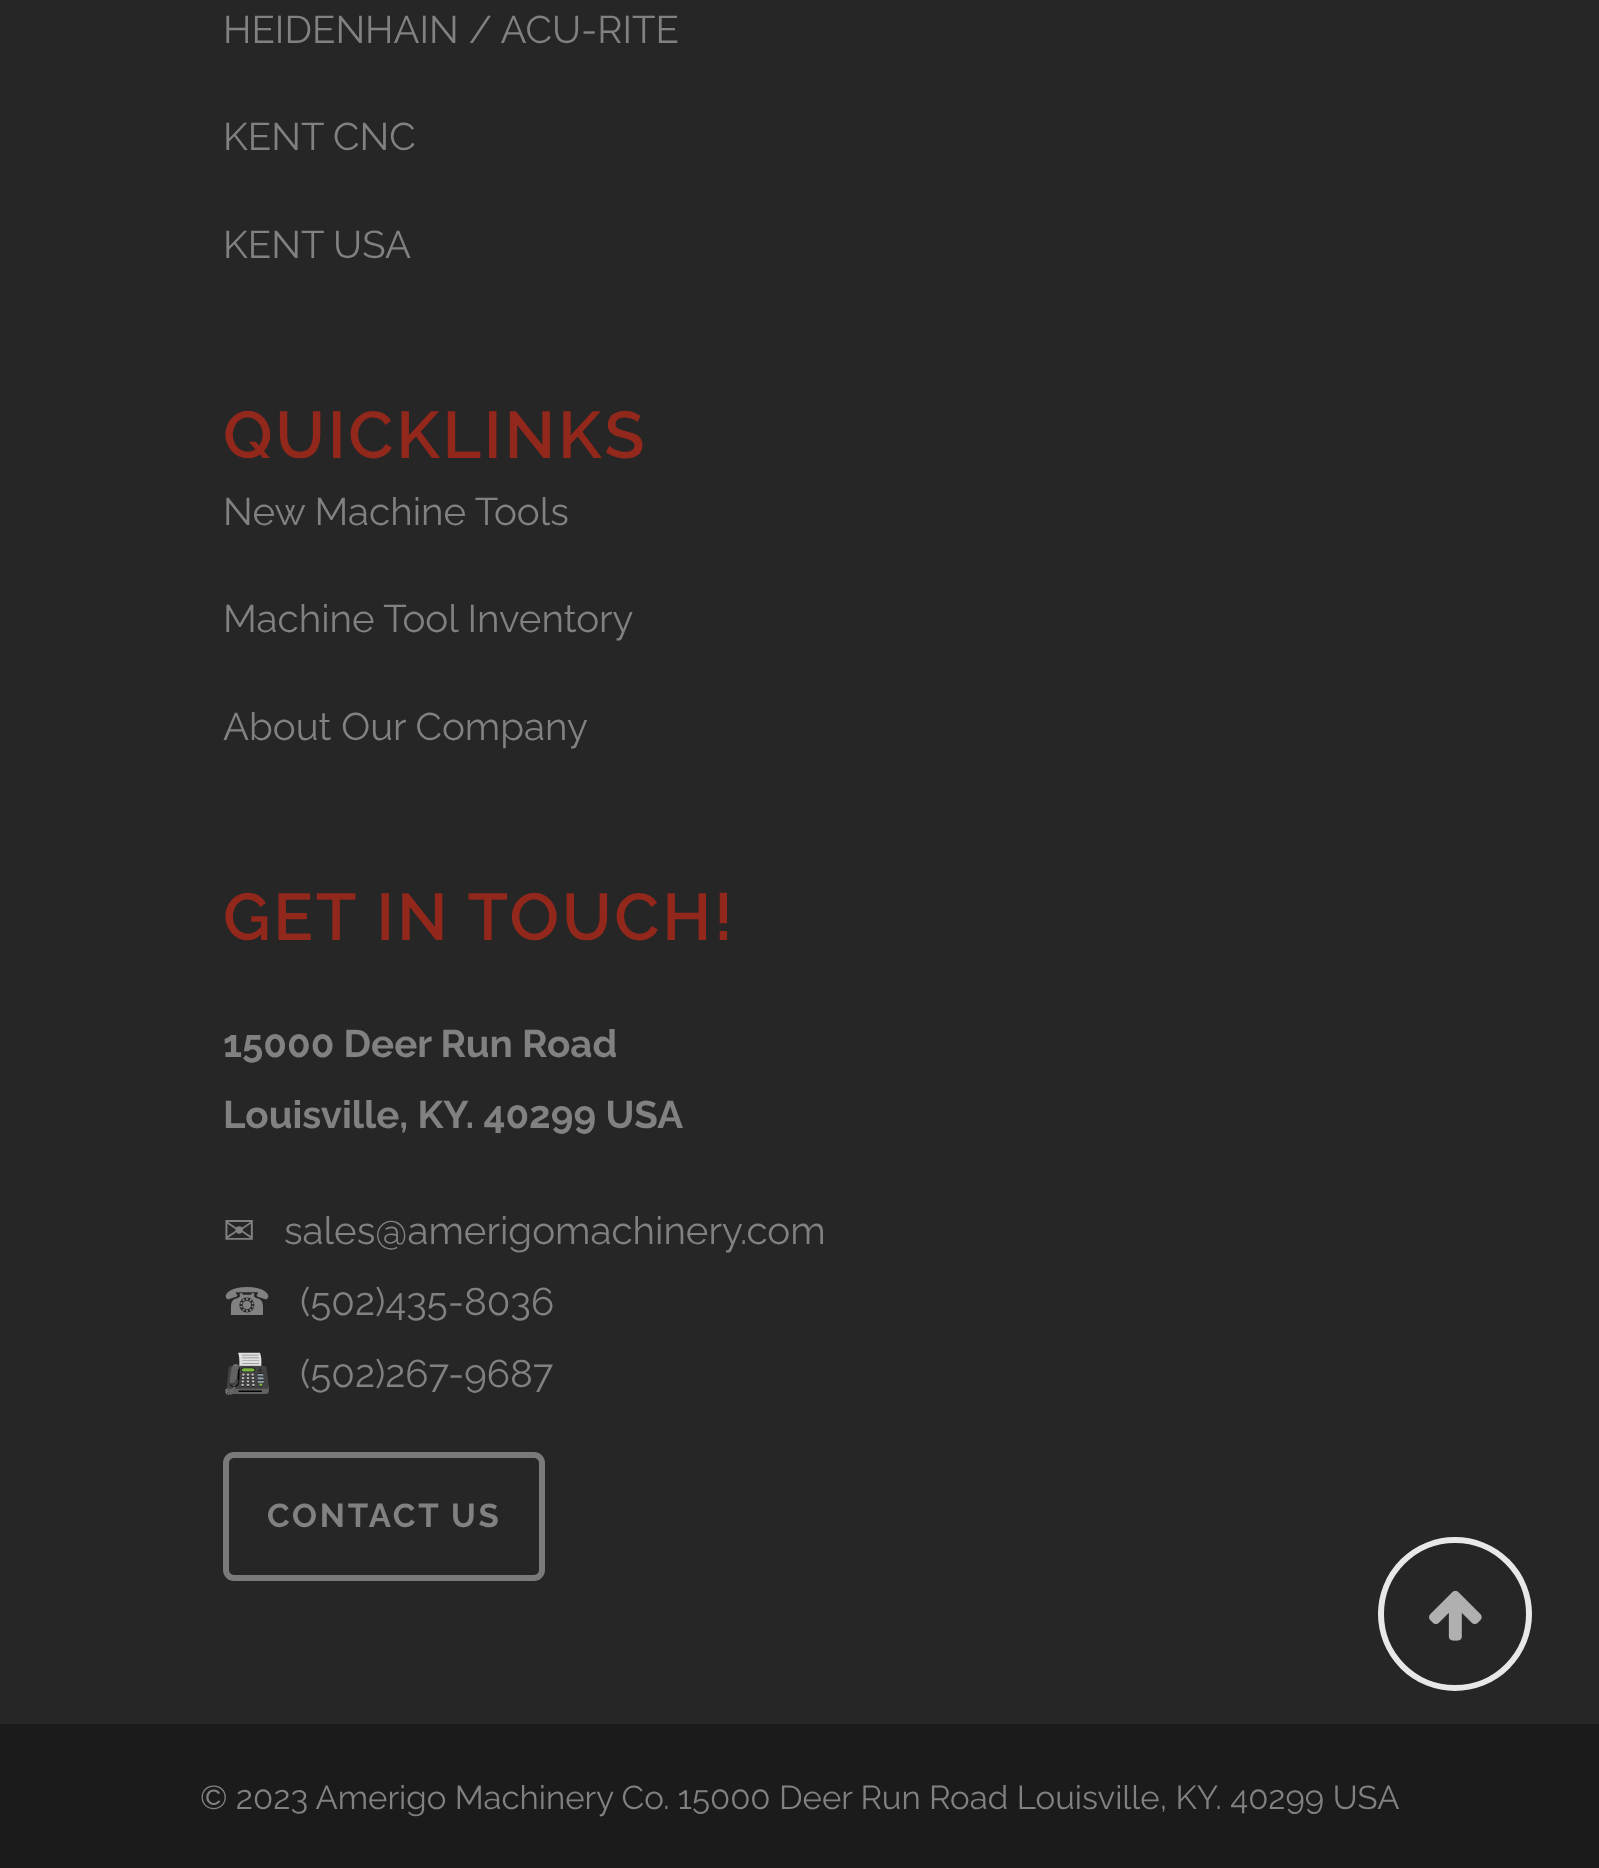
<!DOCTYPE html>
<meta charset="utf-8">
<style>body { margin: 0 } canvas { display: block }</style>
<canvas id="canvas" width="1599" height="1868"></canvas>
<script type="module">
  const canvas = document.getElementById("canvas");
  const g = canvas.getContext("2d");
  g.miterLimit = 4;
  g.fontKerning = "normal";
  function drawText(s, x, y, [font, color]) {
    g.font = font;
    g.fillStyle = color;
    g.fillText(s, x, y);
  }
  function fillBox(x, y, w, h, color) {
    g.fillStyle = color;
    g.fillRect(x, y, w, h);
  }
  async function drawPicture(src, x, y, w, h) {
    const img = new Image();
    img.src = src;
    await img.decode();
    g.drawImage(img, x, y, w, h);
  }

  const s1 = ["38.5px Raleway", "#818181"];
  const s2 = ["600 66px Raleway", "#92271C"];
  const s3 = ["bold 38.5px Raleway", "#818181"];
  const s4 = ["38.5px DejaVu Sans", "#818181"];
  const s5 = ["38.5px Noto Color Emoji", "#818181"];
  const s6 = ["bold 33px Raleway", "#818181"];
  const s7 = ["33px Raleway", "#818181"];

  fillBox(0, 0, 1599, 1868, "#1B1B1B");
  fillBox(0, 0, 1599, 1724, "#262626");
  drawText("HEIDENHAIN / ACU-RITE", 223, 43, s1);
  drawText("KENT CNC", 223, 150, s1);
  drawText("KENT USA", 223, 258, s1);
  g.letterSpacing = "2.75px";
  drawText("QUICKLINKS", 223, 458, s2);
  g.letterSpacing = "0px";
  drawText("New Machine Tools", 223, 525, s1);
  drawText("Machine Tool Inventory", 223, 632, s1);
  drawText("About Our Company", 223, 740, s1);
  g.letterSpacing = "2.75px";
  drawText("GET IN TOUCH!", 223, 940, s2);
  g.letterSpacing = "0px";
  drawText("15000 Deer Run Road", 223, 1057, s3);
  drawText("Louisville, KY. 40299 USA", 223, 1128, s3);
  drawText("✉", 223, 1244, s4);
  drawText("sales@amerigomachinery.com", 284, 1244, s1);
  drawText("☎", 223, 1315, s4);
  drawText("(502)435-8036", 300, 1315, s1);
  drawText("📠", 223, 1387, s5);
  drawText("(502)267-9687", 300, 1387, s1);
  g.beginPath();
  g.roundRect(226, 1455, 316, 123, 8);
  g.strokeStyle = "#7A7A7A";
  g.lineWidth = 6;
  g.stroke();
  g.letterSpacing = "2.75px";
  drawText("CONTACT US", 267, 1527, s6);
  g.letterSpacing = "0px";
  drawText("© 2023 Amerigo Machinery Co. 15000 Deer Run Road Louisville, KY. 40299 USA", 200, 1809, s7);
  g.beginPath();
  g.arc(1455, 1614, 74, 0, Math.PI * 2);
  g.strokeStyle = "#E8E8E8";
  g.stroke();
  await drawPicture("pic1.png", 1429, 1590, 53, 51);
</script>
